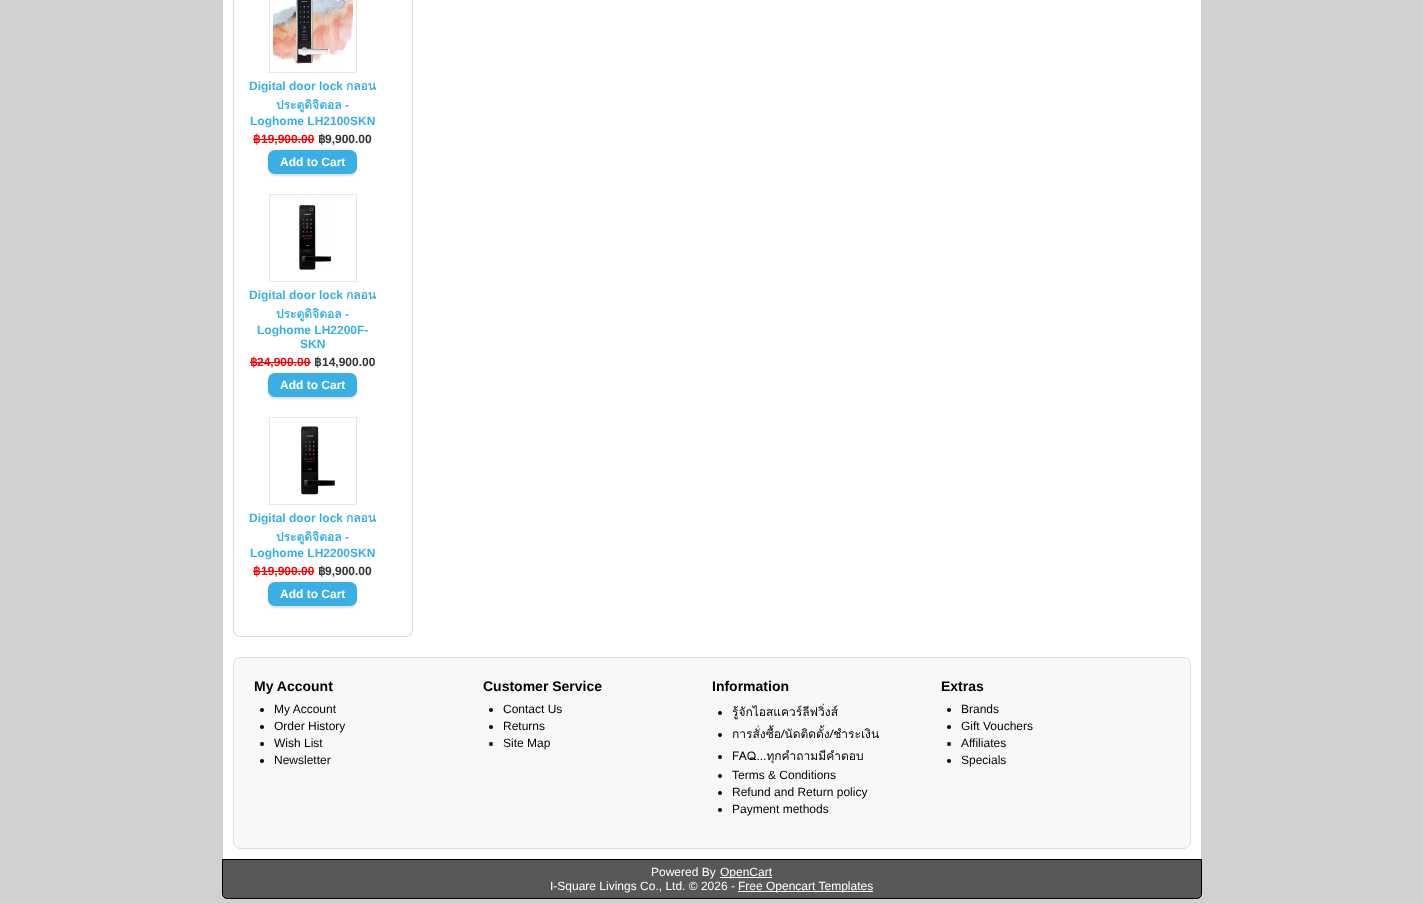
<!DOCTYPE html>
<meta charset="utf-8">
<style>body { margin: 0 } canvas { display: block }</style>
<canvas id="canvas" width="1423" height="903"></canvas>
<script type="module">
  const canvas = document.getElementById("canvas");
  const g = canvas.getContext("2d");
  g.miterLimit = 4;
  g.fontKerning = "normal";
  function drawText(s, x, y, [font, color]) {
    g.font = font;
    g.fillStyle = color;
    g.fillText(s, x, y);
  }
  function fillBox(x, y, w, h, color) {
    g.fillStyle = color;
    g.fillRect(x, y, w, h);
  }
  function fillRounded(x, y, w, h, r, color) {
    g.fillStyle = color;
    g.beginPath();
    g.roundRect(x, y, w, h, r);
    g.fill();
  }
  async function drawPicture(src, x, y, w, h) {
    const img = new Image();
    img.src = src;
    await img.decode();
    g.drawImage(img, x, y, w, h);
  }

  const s1 = ["bold 12px Liberation Sans", "#38B0E3"];
  const s2 = ["bold 12px Loma", "#38B0E3"];
  const s3 = ["bold 12px DejaVu Sans", "#FF0000"];
  const s4 = ["bold 12px Liberation Sans", "#FF0000"];
  const s5 = ["bold 12px DejaVu Sans", "#333333"];
  const s6 = ["bold 12px Liberation Sans", "#333333"];
  const s7 = ["bold 12px Liberation Sans", "#FFFFFF"];
  const s8 = ["bold 14px Liberation Sans", "#000000"];
  const s9 = ["12px Liberation Sans", "#000000"];
  const s10 = ["12px Loma", "#000000"];
  const s11 = ["12px Liberation Sans", "#FFFFFF"];

  fillBox(0, 0, 1423, 903, "#D2D1D0");
  fillBox(223, 0, 978, 859, "#FFFFFF");
  fillBox(1201, 0, 1, 859, "#CCCCCC");
  fillBox(222, 0, 1, 859, "#CCCCCC");
  g.fillStyle = "#DBDEE1";
  g.beginPath();
  g.moveTo(233, -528);
  g.lineTo(413, -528);
  g.lineTo(413, 630);
  g.bezierCurveTo(413, 634, 410, 637, 406, 637);
  g.lineTo(240, 637);
  g.bezierCurveTo(236, 637, 233, 634, 233, 630);
  g.closePath();
  g.moveTo(234, -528);
  g.lineTo(412, -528);
  g.lineTo(412, 630);
  g.bezierCurveTo(412, 633, 409, 636, 406, 636);
  g.lineTo(240, 636);
  g.bezierCurveTo(237, 636, 234, 633, 234, 630);
  g.closePath();
  g.fill("evenodd");
  g.strokeStyle = "#E7E7E7";
  g.strokeRect(269.5, -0.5, 87, 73);
  await drawPicture("pic1.png", 273, 0, 80, 69);
  drawText("Digital door lock", 249, 90, s1);
  drawText("กลอน", 346, 90, s2);
  drawText("ประตูดิจิตอล", 276, 109, s2);
  drawText("-", 345, 109, s1);
  drawText("Loghome LH2100SKN", 250, 125, s1);
  drawText("฿", 253, 143, s3);
  drawText("19,900.00", 261, 143, s4);
  fillBox(253, 139, 61, 1, "#FF0000");
  drawText("฿", 318, 143, s5);
  drawText("9,900.00", 325, 143, s6);
  g.fillStyle = "#DDDDDD";
  g.filter = "blur(1px)";
  g.beginPath();
  g.roundRect(268, 152, 89, 24, 7);
  g.fill();
  g.filter = "none";
  fillRounded(268, 150, 89, 24, 7, "#38B0E3");
  drawText("Add to Cart", 280, 166, s7);
  g.strokeRect(269.5, 194.5, 87, 87);
  await drawPicture("pic2.png", 297, 199, 35, 71);
  drawText("Digital door lock", 249, 299, s1);
  drawText("กลอน", 346, 299, s2);
  drawText("ประตูดิจิตอล", 276, 318, s2);
  drawText("-", 345, 318, s1);
  drawText("Loghome LH2200F-", 257, 334, s1);
  drawText("SKN", 300, 348, s1);
  drawText("฿", 250, 366, s3);
  drawText("24,900.00", 257, 366, s4);
  fillBox(250, 362, 61, 1, "#FF0000");
  drawText("฿", 314, 366, s5);
  drawText("14,900.00", 322, 366, s6);
  g.fillStyle = "#DDDDDD";
  g.filter = "blur(1px)";
  g.beginPath();
  g.roundRect(268, 375, 89, 24, 7);
  g.fill();
  g.filter = "none";
  fillRounded(268, 373, 89, 24, 7, "#38B0E3");
  drawText("Add to Cart", 280, 389, s7);
  g.strokeRect(269.5, 417.5, 87, 87);
  await drawPicture("pic3.png", 301, 426, 34, 69);
  drawText("Digital door lock", 249, 522, s1);
  drawText("กลอน", 346, 522, s2);
  drawText("ประตูดิจิตอล", 276, 541, s2);
  drawText("-", 345, 541, s1);
  drawText("Loghome LH2200SKN", 250, 557, s1);
  drawText("฿", 253, 575, s3);
  drawText("19,900.00", 261, 575, s4);
  fillBox(253, 571, 61, 1, "#FF0000");
  drawText("฿", 318, 575, s5);
  drawText("9,900.00", 325, 575, s6);
  g.fillStyle = "#DDDDDD";
  g.filter = "blur(1px)";
  g.beginPath();
  g.roundRect(268, 584, 89, 24, 7);
  g.fill();
  g.filter = "none";
  fillRounded(268, 582, 89, 24, 7, "#38B0E3");
  drawText("Add to Cart", 280, 598, s7);
  g.fillStyle = "#F8F8F8";
  g.beginPath();
  g.roundRect(233.5, 657.5, 957, 191, 6.5);
  g.fill();
  g.strokeStyle = "#DBDEE1";
  g.stroke();
  drawText("My Account", 254, 691, s8);
  g.beginPath();
  g.arc(262, 710, 2, 0, Math.PI * 2);
  g.fill();
  drawText("My Account", 274, 713, s9);
  g.beginPath();
  g.arc(262, 727, 2, 0, Math.PI * 2);
  g.fill();
  drawText("Order History", 274, 730, s9);
  g.beginPath();
  g.arc(262, 744, 2, 0, Math.PI * 2);
  g.fill();
  drawText("Wish List", 274, 747, s9);
  g.beginPath();
  g.arc(262, 761, 2, 0, Math.PI * 2);
  g.fill();
  drawText("Newsletter", 274, 764, s9);
  drawText("Customer Service", 483, 691, s8);
  g.beginPath();
  g.arc(491, 710, 2, 0, Math.PI * 2);
  g.fill();
  drawText("Contact Us", 503, 713, s9);
  g.beginPath();
  g.arc(491, 727, 2, 0, Math.PI * 2);
  g.fill();
  drawText("Returns", 503, 730, s9);
  g.beginPath();
  g.arc(491, 744, 2, 0, Math.PI * 2);
  g.fill();
  drawText("Site Map", 503, 747, s9);
  drawText("Information", 712, 691, s8);
  g.beginPath();
  g.arc(720, 713, 2, 0, Math.PI * 2);
  g.fill();
  drawText("รู้จักไอสแควร์ลีฟวิ่งส์", 732, 716, s10);
  g.beginPath();
  g.arc(720, 735, 2, 0, Math.PI * 2);
  g.fill();
  drawText("การสั่งซื้อ/นัดติดตั้ง/ชำระเงิน", 732, 738, s10);
  g.beginPath();
  g.arc(720, 757, 2, 0, Math.PI * 2);
  g.fill();
  drawText("FAQ...ทุกคำถามมีคำตอบ", 732, 760, s10);
  g.beginPath();
  g.arc(720, 776, 2, 0, Math.PI * 2);
  g.fill();
  drawText("Terms & Conditions", 732, 779, s9);
  g.beginPath();
  g.arc(720, 793, 2, 0, Math.PI * 2);
  g.fill();
  drawText("Refund and Return policy", 732, 796, s9);
  g.beginPath();
  g.arc(720, 810, 2, 0, Math.PI * 2);
  g.fill();
  drawText("Payment methods", 732, 813, s9);
  drawText("Extras", 941, 691, s8);
  g.beginPath();
  g.arc(949, 710, 2, 0, Math.PI * 2);
  g.fill();
  drawText("Brands", 961, 713, s9);
  g.beginPath();
  g.arc(949, 727, 2, 0, Math.PI * 2);
  g.fill();
  drawText("Gift Vouchers", 961, 730, s9);
  g.beginPath();
  g.arc(949, 744, 2, 0, Math.PI * 2);
  g.fill();
  drawText("Affiliates", 961, 747, s9);
  g.beginPath();
  g.arc(949, 761, 2, 0, Math.PI * 2);
  g.fill();
  drawText("Specials", 961, 764, s9);
  g.fillStyle = "#585858";
  g.beginPath();
  g.roundRect(222.5, 859.5, 979, 39, [0, 0, 4.5, 4.5]);
  g.fill();
  g.strokeStyle = "#000000";
  g.stroke();
  drawText("Powered By", 651, 876, s11);
  fillBox(720, 877, 52, 1, "#FFFFFF");
  drawText("OpenCart", 720, 876, s11);
  drawText("I-Square Livings Co., Ltd. © 2026 -", 550, 890, s11);
  fillBox(738, 891, 135, 1, "#FFFFFF");
  drawText("Free Opencart Templates", 738, 890, s11);
</script>
